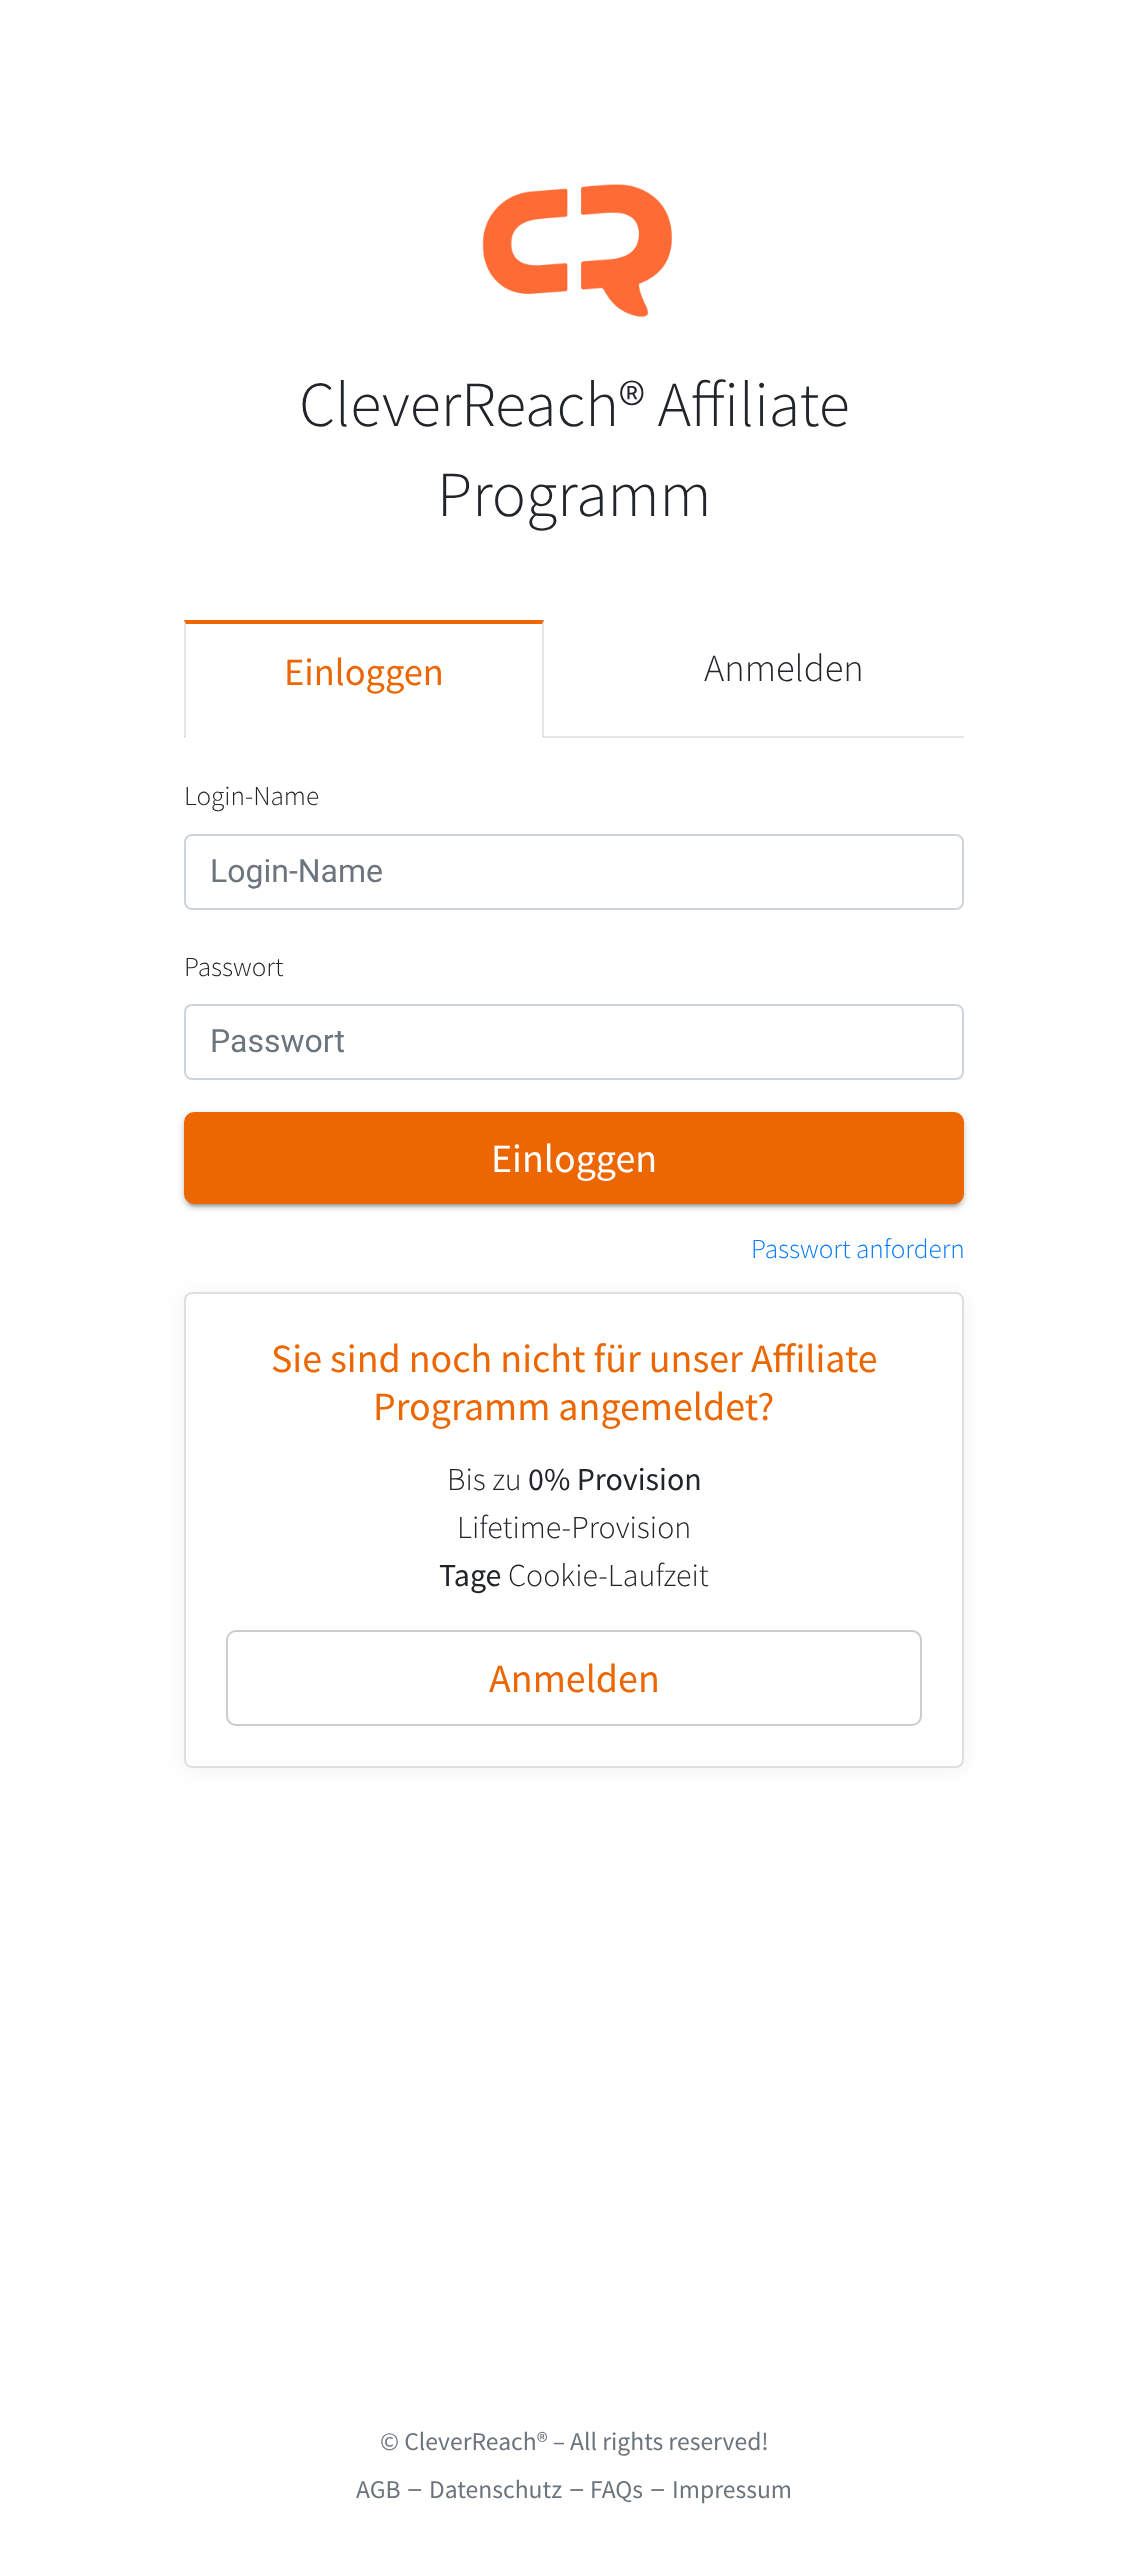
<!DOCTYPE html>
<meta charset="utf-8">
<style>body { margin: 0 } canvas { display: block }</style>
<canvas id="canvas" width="1147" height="2550"></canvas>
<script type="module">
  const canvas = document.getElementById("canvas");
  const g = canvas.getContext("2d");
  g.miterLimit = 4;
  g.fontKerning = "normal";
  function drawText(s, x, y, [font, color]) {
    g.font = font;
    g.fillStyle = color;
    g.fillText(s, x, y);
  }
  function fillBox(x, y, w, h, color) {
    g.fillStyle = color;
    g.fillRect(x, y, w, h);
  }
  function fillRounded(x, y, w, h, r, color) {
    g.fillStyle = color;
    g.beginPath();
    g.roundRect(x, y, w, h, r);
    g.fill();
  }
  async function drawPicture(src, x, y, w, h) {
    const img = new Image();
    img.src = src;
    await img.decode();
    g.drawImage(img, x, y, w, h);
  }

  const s1 = ["300 64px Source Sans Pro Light", "#212529"];
  const s2 = ["38.5px Source Sans Pro", "#EC6702"];
  const s3 = ["300 38.5px Source Sans Pro Light", "#212529"];
  const s4 = ["300 27.25px Source Sans Pro Light", "#212529"];
  const s5 = ["32px Roboto", "#6C757D"];
  const s6 = ["40px Source Sans Pro", "#FFFFFF"];
  const s7 = ["300 27.25px Source Sans Pro Light", "#007BFF"];
  const s8 = ["40px Source Sans Pro", "#EC6702"];
  const s9 = ["300 32px Source Sans Pro Light", "#212529"];
  const s10 = ["32px Source Sans Pro", "#212529"];
  const s11 = ["25.6px Source Sans Pro", "#6C757D"];

  fillBox(0, 0, 1147, 2550, "#FFFFFF");
  await drawPicture("pic1.png", 482, 184, 190, 133);
  drawText("CleverReach® Affiliate", 299, 426, s1);
  drawText("Programm", 437, 516, s1);
  g.fillStyle = "#EC6702";
  g.beginPath();
  g.moveTo(184, 620);
  g.lineTo(544, 620);
  g.lineTo(542, 624);
  g.lineTo(186, 624);
  g.closePath();
  g.fill();
  fillBox(184, 736, 780, 2, "#E6E6E6");
  g.fillStyle = "rgba(0, 0, 0, 0.1)";
  g.beginPath();
  g.moveTo(544, 620);
  g.lineTo(544, 738);
  g.lineTo(542, 736);
  g.lineTo(542, 624);
  g.closePath();
  g.fill();
  g.fillStyle = "#FFFFFF";
  g.beginPath();
  g.moveTo(544, 738);
  g.lineTo(184, 738);
  g.lineTo(186, 736);
  g.lineTo(542, 736);
  g.closePath();
  g.fill();
  g.fillStyle = "rgba(0, 0, 0, 0.1)";
  g.beginPath();
  g.moveTo(184, 738);
  g.lineTo(184, 620);
  g.lineTo(186, 624);
  g.lineTo(186, 736);
  g.closePath();
  g.fill();
  drawText("Einloggen", 284, 685, s2);
  drawText("Anmelden", 704, 681, s3);
  drawText("Login-Name", 184, 805, s4);
  g.beginPath();
  g.roundRect(185, 835, 778, 74, 7);
  g.strokeStyle = "#CED4DA";
  g.lineWidth = 2;
  g.stroke();
  drawText("Login-Name", 210, 882, s5);
  drawText("Passwort", 184, 976, s4);
  g.beginPath();
  g.roundRect(185, 1005, 778, 74, 7);
  g.stroke();
  drawText("Passwort", 210, 1052, s5);
  g.fillStyle = "rgba(0, 0, 0, 0.12)";
  g.filter = "blur(5px)";
  g.beginPath();
  g.roundRect(184, 1114, 780, 92, 10);
  g.fill();
  g.filter = "none";
  g.fillStyle = "rgba(0, 0, 0, 0.2)";
  g.filter = "blur(1px)";
  g.beginPath();
  g.roundRect(188, 1122, 772, 84, 6);
  g.fill();
  g.filter = "none";
  g.fillStyle = "rgba(0, 0, 0, 0.14)";
  g.filter = "blur(2px)";
  g.beginPath();
  g.roundRect(184, 1116, 780, 92, 10);
  g.fill();
  g.filter = "none";
  fillRounded(184, 1112, 780, 92, 10, "#EC6702");
  drawText("Einloggen", 491, 1172, s6);
  drawText("Passwort anfordern", 751, 1258, s7);
  g.fillStyle = "rgba(0, 0, 0, 0.05)";
  g.filter = "blur(10px)";
  g.beginPath();
  g.roundRect(184, 1294, 780, 476, 8);
  g.fill();
  g.filter = "none";
  g.fillStyle = "#FFFFFF";
  g.beginPath();
  g.roundRect(185, 1293, 778, 474, 7);
  g.fill();
  g.strokeStyle = "#DFDFDF";
  g.stroke();
  drawText("Sie sind noch nicht für unser Affiliate", 271, 1372, s8);
  drawText("Programm angemeldet?", 373, 1420, s8);
  drawText("Bis zu", 447, 1490, s9);
  drawText("0% Provision", 528, 1490, s10);
  drawText("Lifetime-Provision", 457, 1538, s9);
  drawText("Tage", 439, 1586, s10);
  drawText("Cookie-Laufzeit", 508, 1586, s9);
  g.beginPath();
  g.roundRect(227, 1631, 694, 94, 9);
  g.strokeStyle = "#CCCCCC";
  g.stroke();
  drawText("Anmelden", 489, 1692, s8);
  drawText("© CleverReach® – All rights reserved!", 380, 2450, s11);
  drawText("AGB", 356, 2498, s11);
  drawText("–", 407, 2498, s9);
  drawText("Datenschutz", 429, 2498, s11);
  drawText("–", 569, 2498, s9);
  drawText("FAQs", 590, 2498, s11);
  drawText("–", 650, 2498, s9);
  drawText("Impressum", 672, 2498, s11);
</script>
